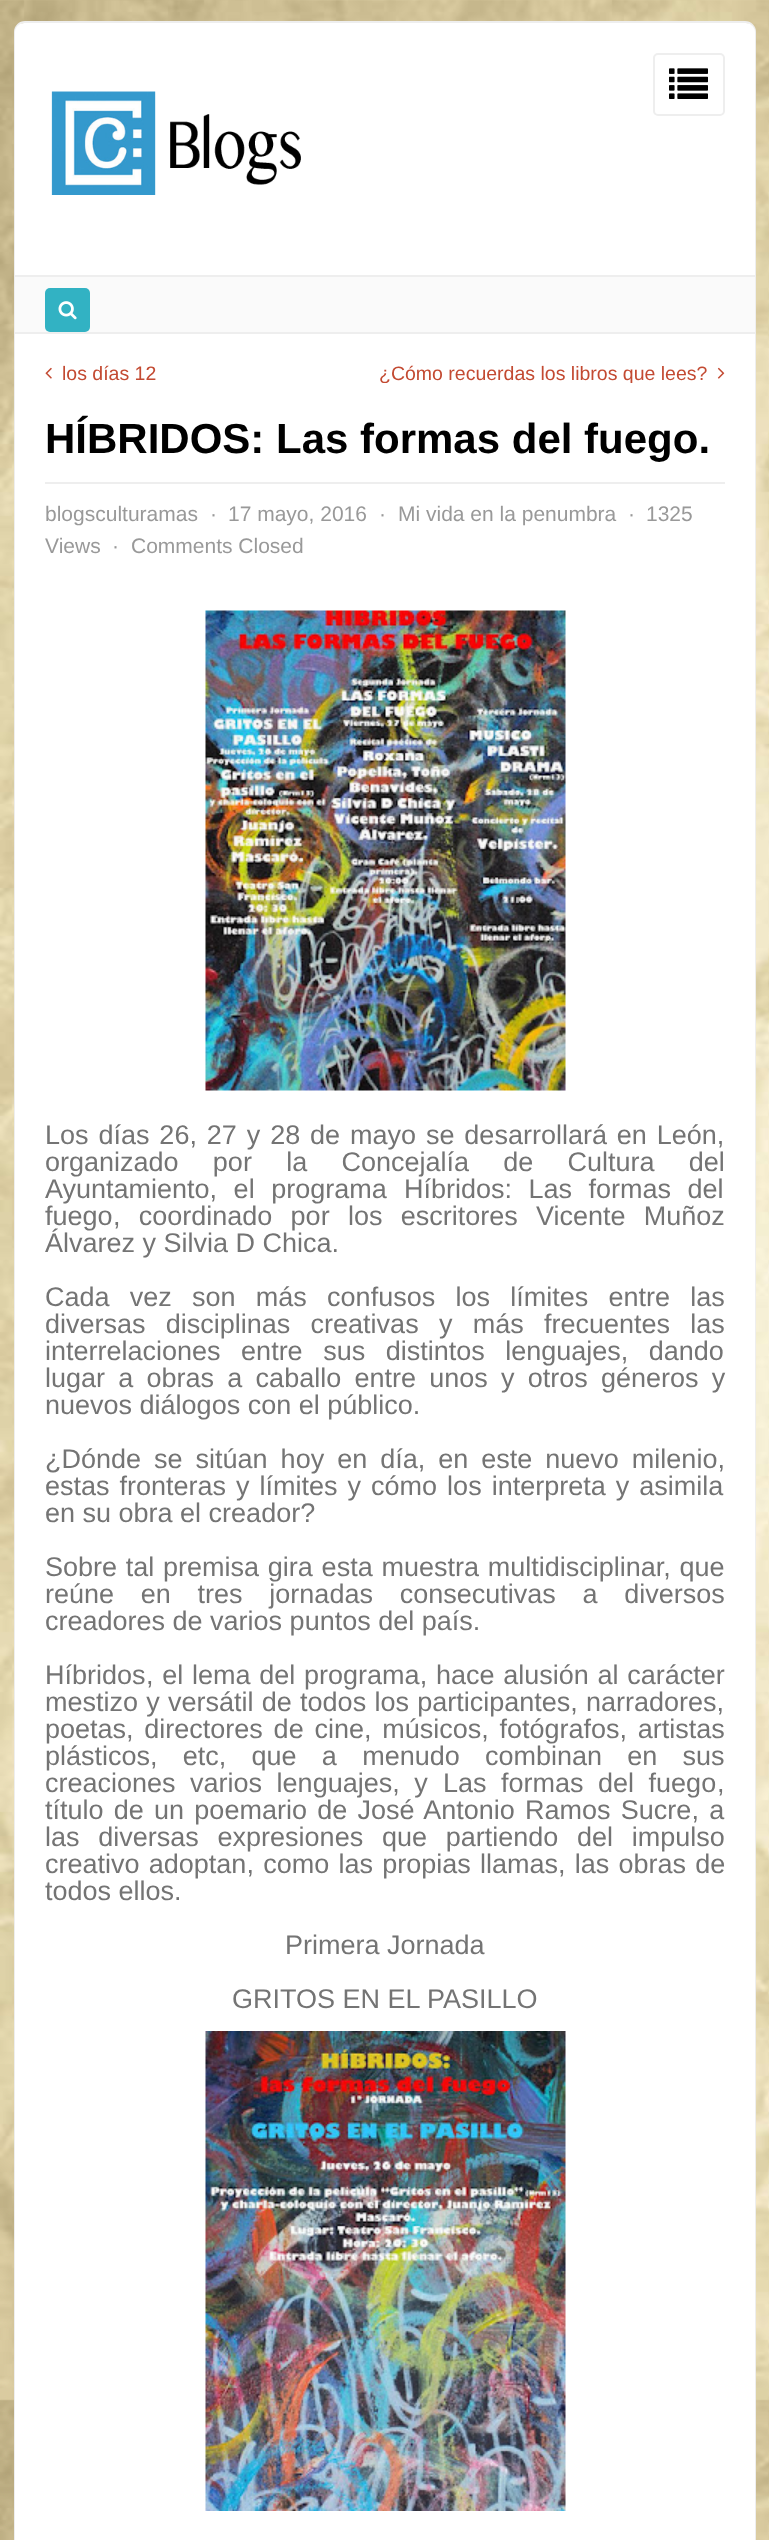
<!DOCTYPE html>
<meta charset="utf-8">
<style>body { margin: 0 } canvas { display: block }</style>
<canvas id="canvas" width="769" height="2540"></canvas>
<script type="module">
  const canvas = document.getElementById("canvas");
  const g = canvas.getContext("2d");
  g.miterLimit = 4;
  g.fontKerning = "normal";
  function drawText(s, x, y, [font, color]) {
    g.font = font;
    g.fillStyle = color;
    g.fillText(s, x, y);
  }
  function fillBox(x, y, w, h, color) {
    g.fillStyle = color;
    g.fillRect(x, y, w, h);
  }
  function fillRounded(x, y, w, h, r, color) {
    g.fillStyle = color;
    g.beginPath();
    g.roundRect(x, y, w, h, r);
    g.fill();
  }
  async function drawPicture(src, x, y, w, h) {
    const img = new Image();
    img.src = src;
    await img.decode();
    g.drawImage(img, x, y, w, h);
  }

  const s1 = ["19.5px Liberation Sans", "#C34A32"];
  const s2 = ["bold 42px Liberation Sans", "#000000"];
  const s3 = ["21px Liberation Sans", "#999999"];
  const s4 = ["27px Liberation Sans", "#747474"];

  fillBox(0, 0, 769, 2540, "#FFFFFF");
  await drawPicture("pic1.png", 0, 0, 769, 2540);
  g.beginPath();
  g.roundRect(15, 22, 740, 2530, 10);
  g.strokeStyle = "#EEEEEE";
  g.lineWidth = 2;
  g.stroke();
  fillRounded(15, 23, 740, 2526, 9, "#FFFFFF");
  g.beginPath();
  g.roundRect(654, 54, 70, 61, 4);
  g.stroke();
  await drawPicture("pic2.png", 669, 68, 39, 31);
  await drawPicture("pic3.png", 51, 91, 250, 104);
  fillBox(15, 277, 740, 55, "#FAFAFA");
  fillBox(15, 275, 740, 2, "#EEEEEE");
  fillBox(15, 332, 740, 2, "#EEEEEE");
  fillRounded(45, 288, 45, 44, 5, "#32B2C3");
  await drawPicture("pic4.png", 58, 301, 19, 19);
  await drawPicture("pic5.png", 45, 367, 7, 12);
  drawText("los días 12", 62, 380, s1);
  g.save();
  g.beginPath();
  g.rect(45, 363, 680, 20);
  g.clip();
  drawText("¿Cómo recuerdas los libros que lees?", 379, 380, s1);
  g.restore();
  await drawPicture("pic6.png", 717, 367, 8, 12);
  fillBox(45, 482, 680, 2, "#EEEEEE");
  drawText("HÍBRIDOS: Las formas del fuego.", 45, 453, s2);
  drawText("blogsculturamas", 45, 521, s3);
  drawText("·", 210, 521, s3);
  drawText("17 mayo, 2016", 228, 521, s3);
  drawText("·", 379, 521, s3);
  drawText("Mi vida en la penumbra", 398, 521, s3);
  drawText("·", 628, 521, s3);
  drawText("1325", 646, 521, s3);
  drawText("Views", 45, 553, s3);
  drawText("·", 112, 553, s3);
  drawText("Comments Closed", 131, 553, s3);
  await drawPicture("pic7.png", 205, 610, 361, 481);
  g.wordSpacing = "2.4px";
  drawText("Los días 26, 27 y 28 de mayo se desarrollará en León,", 45, 1144, s4);
  g.wordSpacing = "26.75px";
  drawText("organizado por la Concejalía de Cultura del", 45, 1171, s4);
  g.wordSpacing = "9px";
  drawText("Ayuntamiento, el programa", 45, 1198, s4);
  drawText("Híbridos: Las formas del", 404, 1198, s4);
  g.wordSpacing = "0px";
  drawText("fuego", 45, 1225, s4);
  g.wordSpacing = "10.75px";
  drawText(", coordinado por los escritores Vicente Muñoz", 113, 1225, s4);
  g.wordSpacing = "0px";
  drawText("Álvarez y Silvia D Chica.", 45, 1252, s4);
  g.wordSpacing = "12.75px";
  drawText("Cada vez son más confusos los límites entre las", 45, 1306, s4);
  drawText("diversas disciplinas creativas y más frecuentes las", 45, 1333, s4);
  g.wordSpacing = "13px";
  drawText("interrelaciones entre sus distintos lenguajes, dando", 45, 1360, s4);
  g.wordSpacing = "5.75px";
  drawText("lugar a obras a caballo entre unos y otros géneros y", 45, 1387, s4);
  g.wordSpacing = "0px";
  drawText("nuevos diálogos con el público.", 45, 1414, s4);
  g.wordSpacing = "5.5px";
  drawText("¿Dónde se sitúan hoy en día, en este nuevo milenio,", 45, 1468, s4);
  g.wordSpacing = "2.5px";
  drawText("estas fronteras y límites y cómo los interpreta y asimila", 45, 1495, s4);
  g.wordSpacing = "0px";
  drawText("en su obra el creador?", 45, 1522, s4);
  g.wordSpacing = "1.25px";
  drawText("Sobre tal premisa gira esta muestra multidisciplinar, que", 45, 1576, s4);
  g.wordSpacing = "19.25px";
  drawText("reúne en tres jornadas consecutivas a diversos", 45, 1603, s4);
  g.wordSpacing = "0px";
  drawText("creadores de varios puntos del país.", 45, 1630, s4);
  drawText("Híbridos", 45, 1684, s4);
  g.wordSpacing = "1.25px";
  drawText(", el lema del programa, hace alusión al carácter", 146, 1684, s4);
  g.wordSpacing = "0.75px";
  drawText("mestizo y versátil de todos los participantes, narradores,", 45, 1711, s4);
  g.wordSpacing = "3.25px";
  drawText("poetas, directores de cine, músicos, fotógrafos, artistas", 45, 1738, s4);
  g.wordSpacing = "17.75px";
  drawText("plásticos, etc, que a menudo combinan en sus", 45, 1765, s4);
  g.wordSpacing = "7px";
  drawText("creaciones varios lenguajes, y", 45, 1792, s4);
  drawText("Las formas del fuego", 443, 1792, s4);
  g.wordSpacing = "0px";
  drawText(",", 717, 1792, s4);
  g.wordSpacing = "2.75px";
  drawText("título de un poemario de José Antonio Ramos Sucre, a", 45, 1819, s4);
  g.wordSpacing = "11.25px";
  drawText("las diversas expresiones que partiendo del impulso", 45, 1846, s4);
  g.wordSpacing = "1.75px";
  drawText("creativo adoptan, como las propias llamas, las obras de", 45, 1873, s4);
  g.wordSpacing = "0px";
  drawText("todos ellos.", 45, 1900, s4);
  drawText("Primera Jornada", 285, 1954, s4);
  drawText("GRITOS EN EL PASILLO", 232, 2008, s4);
  await drawPicture("pic8.png", 205, 2031, 361, 480);
</script>
